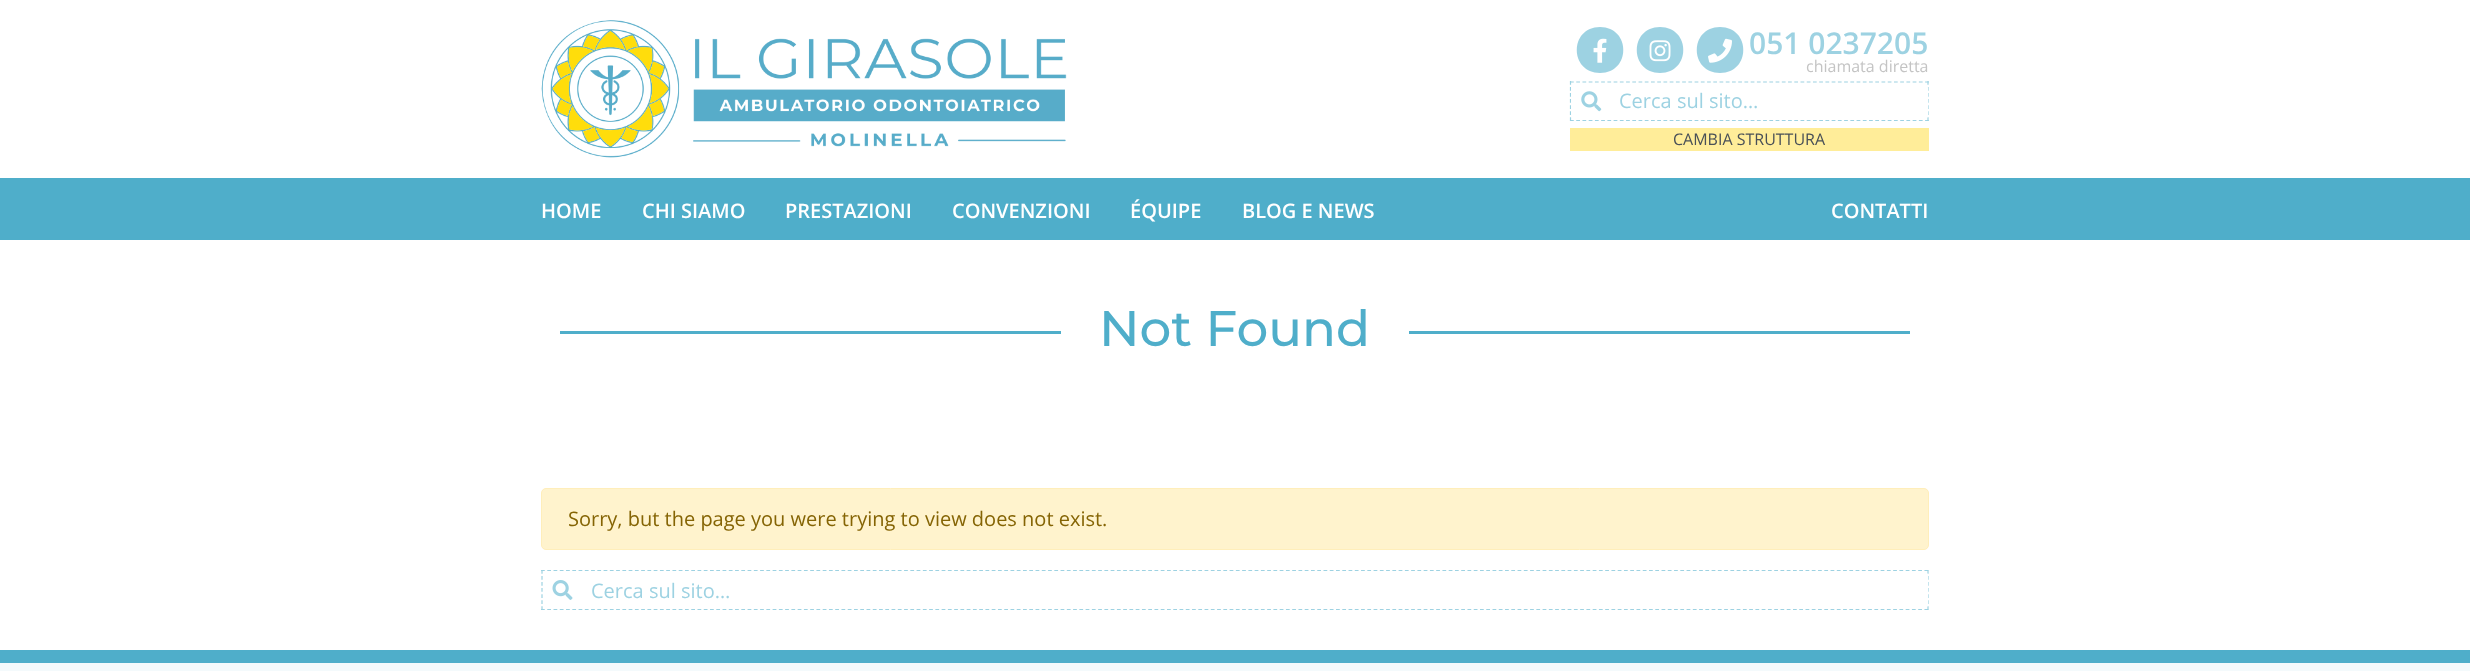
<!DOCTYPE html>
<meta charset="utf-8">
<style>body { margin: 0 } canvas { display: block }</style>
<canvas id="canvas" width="2470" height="671"></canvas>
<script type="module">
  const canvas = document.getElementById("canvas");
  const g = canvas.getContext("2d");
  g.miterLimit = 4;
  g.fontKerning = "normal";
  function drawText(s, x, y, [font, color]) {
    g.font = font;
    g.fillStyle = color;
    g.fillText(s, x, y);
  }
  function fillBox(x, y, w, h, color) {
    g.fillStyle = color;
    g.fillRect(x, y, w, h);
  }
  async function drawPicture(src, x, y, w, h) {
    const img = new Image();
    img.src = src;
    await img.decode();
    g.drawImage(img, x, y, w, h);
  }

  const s1 = ["600 30px Open Sans", "#9DD2E2"];
  const s2 = ["16px Open Sans", "#C4C4C4"];
  const s3 = ["20px Open Sans", "#9DD2E2"];
  const s4 = ["16px Open Sans", "#495057"];
  const s5 = ["600 20px Open Sans", "#FFFFFF"];
  const s6 = ["100 50px Montserrat", "#4FAECA"];
  const s7 = ["20px Open Sans", "#856404"];

  fillBox(0, 0, 2470, 671, "#FFFFFF");
  await drawPicture("pic1.png", 541, 20, 526, 138);
  g.fillStyle = "#9DD2E2";
  g.beginPath();
  g.moveTo(1600, 27);
  g.bezierCurveTo(1569, 27, 1569, 73, 1600, 73);
  g.bezierCurveTo(1631, 73, 1631, 27, 1600, 27);
  g.closePath();
  g.fill();
  await drawPicture("pic2.png", 1593, 38, 14, 25);
  g.beginPath();
  g.moveTo(1660, 27);
  g.bezierCurveTo(1629, 27, 1629, 73, 1660, 73);
  g.bezierCurveTo(1691, 73, 1691, 27, 1660, 27);
  g.closePath();
  g.fill();
  await drawPicture("pic3.png", 1649, 40, 22, 22);
  g.beginPath();
  g.moveTo(1720, 27);
  g.bezierCurveTo(1689, 27, 1689, 73, 1720, 73);
  g.bezierCurveTo(1751, 73, 1751, 27, 1720, 27);
  g.closePath();
  g.fill();
  await drawPicture("pic4.png", 1708, 38, 24, 25);
  drawText("051 0237205", 1749, 54, s1);
  drawText("chiamata diretta", 1806, 72, s2);
  g.beginPath();
  g.moveTo(1570, 82);
  g.lineTo(1929, 82);
  g.strokeStyle = "#9DD2E2";
  g.lineWidth = 1.2;
  g.setLineDash([3.75, 2.48]);
  g.stroke();
  g.beginPath();
  g.moveTo(1928, 81);
  g.lineTo(1928, 121);
  g.setLineDash([3.75, 2.29]);
  g.stroke();
  g.beginPath();
  g.moveTo(1570, 120.5);
  g.lineTo(1929, 120.5);
  g.setLineDash([3.75, 2.48]);
  g.stroke();
  g.beginPath();
  g.moveTo(1570.5, 81);
  g.lineTo(1570.5, 121);
  g.setLineDash([3.75, 2.29]);
  g.stroke();
  g.fillStyle = "#FFFFFF";
  g.beginPath();
  g.roundRect(1571, 83, 40, 37, [5, 0, 0, 5]);
  g.fill();
  await drawPicture("pic5.png", 1581, 91, 21, 21);
  g.beginPath();
  g.roundRect(1610, 83, 318, 37, [0, 5, 5, 0]);
  g.fill();
  drawText("Cerca sul sito…", 1619, 108, s3);
  fillBox(1570, 128, 359, 23, "#FFED99");
  drawText("CAMBIA STRUTTURA", 1673, 145, s4);
  fillBox(0, 178, 2470, 62, "#4FAECA");
  drawText("HOME", 541, 218, s5);
  drawText("CHI SIAMO", 642, 218, s5);
  drawText("PRESTAZIONI", 785, 218, s5);
  drawText("CONVENZIONI", 952, 218, s5);
  drawText("ÉQUIPE", 1130, 218, s5);
  drawText("BLOG E NEWS", 1242, 218, s5);
  drawText("CONTATTI", 1831, 218, s5);
  fillBox(560, 331, 501, 3, "#4FAECA");
  drawText("Not Found", 1099, 346, s6);
  fillBox(1409, 331, 501, 3, "#4FAECA");
  g.fillStyle = "#FFF3CD";
  g.beginPath();
  g.roundRect(541.5, 488.5, 1387, 61, 4.5);
  g.fill();
  g.strokeStyle = "#FFEEBA";
  g.lineWidth = 1;
  g.setLineDash([]);
  g.stroke();
  drawText("Sorry, but the page you were trying to view does not exist.", 568, 526, s7);
  g.beginPath();
  g.moveTo(541, 570.5);
  g.lineTo(1929, 570.5);
  g.strokeStyle = "#9DD2E2";
  g.lineWidth = 1.2;
  g.setLineDash([3.75, 2.51]);
  g.stroke();
  g.beginPath();
  g.moveTo(1928, 570);
  g.lineTo(1928, 610);
  g.setLineDash([3.75, 2.29]);
  g.stroke();
  g.beginPath();
  g.moveTo(541, 609.5);
  g.lineTo(1929, 609.5);
  g.setLineDash([3.75, 2.51]);
  g.stroke();
  g.beginPath();
  g.moveTo(542, 570);
  g.lineTo(542, 610);
  g.setLineDash([3.75, 2.29]);
  g.stroke();
  g.fillStyle = "#FFFFFF";
  g.beginPath();
  g.roundRect(543, 571, 40, 38, [5, 0, 0, 5]);
  g.fill();
  await drawPicture("pic6.png", 552, 580, 21, 20);
  g.beginPath();
  g.roundRect(581, 571, 1347, 38, [0, 5, 5, 0]);
  g.fill();
  drawText("Cerca sul sito…", 591, 598, s3);
  fillBox(0, 663, 2470, 8, "#F4FAFC");
  fillBox(0, 650, 2470, 13, "#4FAECA");
</script>
